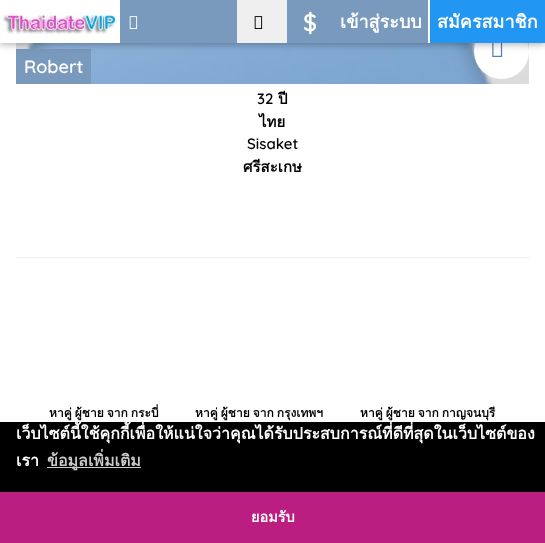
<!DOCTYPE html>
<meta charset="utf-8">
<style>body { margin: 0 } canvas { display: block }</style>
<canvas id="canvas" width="545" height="543"></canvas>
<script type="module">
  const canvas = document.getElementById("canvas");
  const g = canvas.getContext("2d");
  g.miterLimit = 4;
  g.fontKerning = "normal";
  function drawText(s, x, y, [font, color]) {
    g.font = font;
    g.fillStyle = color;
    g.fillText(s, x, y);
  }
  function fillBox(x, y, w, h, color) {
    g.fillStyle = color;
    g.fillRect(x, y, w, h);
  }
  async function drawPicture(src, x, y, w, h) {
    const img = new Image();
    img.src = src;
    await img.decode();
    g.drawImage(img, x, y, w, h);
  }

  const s1 = ["600 24px Quicksand", "#FFFFFF"];
  const s2 = ["bold 18px Loma", "#FFFFFF"];
  const s3 = ["600 18px Quicksand", "#FFFFFF"];
  const s4 = ["600 15px Quicksand", "#000000"];
  const s5 = ["bold 15px Loma", "#000000"];
  const s6 = ["bold 12px Loma", "#000000"];
  const s7 = ["bold 16px Loma", "#FFFFFF"];
  const s8 = ["bold 16px Loma", "#CCCCCC"];
  const s9 = ["bold 14.5px Loma", "#FFFFFF"];

  fillBox(0, 0, 545, 543, "#FFFFFF");
  await drawPicture("pic5.png", 16, 43, 513, 41);
  g.beginPath();
  g.arc(501.5, 51.5, 27.5, 0, Math.PI * 2);
  g.fill();
  await drawPicture("pic4.png", 492, 43, 11, 14);
  fillBox(16, 49, 75, 35, "#7999BD");
  g.fillStyle = "rgba(0, 0, 0, 0.12)";
  g.filter = "blur(5px)";
  g.beginPath();
  g.rect(0, 2, 545, 43);
  g.fill();
  g.filter = "none";
  g.fillStyle = "rgba(0, 0, 0, 0.16)";
  g.filter = "blur(2.5px)";
  g.beginPath();
  g.rect(0, 2, 545, 43);
  g.fill();
  g.filter = "none";
  fillBox(120, 0, 308, 43, "#7999BD");
  fillBox(0, 0, 120, 43, "#FFFFFF");
  await drawPicture("pic1.png", 2, 10, 118, 24);
  await drawPicture("pic2.png", 129, 16, 9, 13);
  fillBox(237, 0, 50, 43, "#EFEFEF");
  await drawPicture("pic3.png", 254, 16, 9, 13);
  drawText("$", 303, 31, s1);
  drawText("เข้าสู่ระบบ", 340, 28, s2);
  fillBox(430, 0, 115, 43, "#2196F3");
  fillBox(428, 0, 2, 43, "#FFFFFF");
  drawText("สมัครสมาชิก", 437, 28, s2);
  drawText("Robert", 24, 73, s3);
  drawText("32", 257, 104, s4);
  drawText("ปี", 278, 104, s5);
  drawText("ไทย", 259, 127, s5);
  drawText("Sisaket", 247, 149, s4);
  drawText("ศรีสะเกษ", 243, 172, s5);
  fillBox(16, 257, 513, 1, "#EEEEEE");
  g.wordSpacing = "-1px";
  drawText("หาคู่ ผู้ชาย จาก กระบี่", 49, 417, s6);
  drawText("หาคู่ ผู้ชาย จาก กรุงเทพฯ", 195, 417, s6);
  drawText("หาคู่ ผู้ชาย จาก กาญจนบุรี", 360, 417, s6);
  fillBox(0, 422, 545, 70, "#000000");
  g.wordSpacing = "0px";
  drawText("เว็บไซต์นี้ใช้คุกกี้เพื่อให้แน่ใจว่าคุณได้รับประสบการณ์ที่ดีที่สุดในเว็บไซต์ของ", 16, 439, s7);
  drawText("เรา", 16, 466, s7);
  fillBox(47, 467, 94, 1, "#CCCCCC");
  drawText("ข้อมูลเพิ่มเติม", 47, 466, s8);
  fillBox(0, 492, 545, 51, "#BA1E81");
  drawText("ยอมรับ", 251, 522, s9);
</script>
